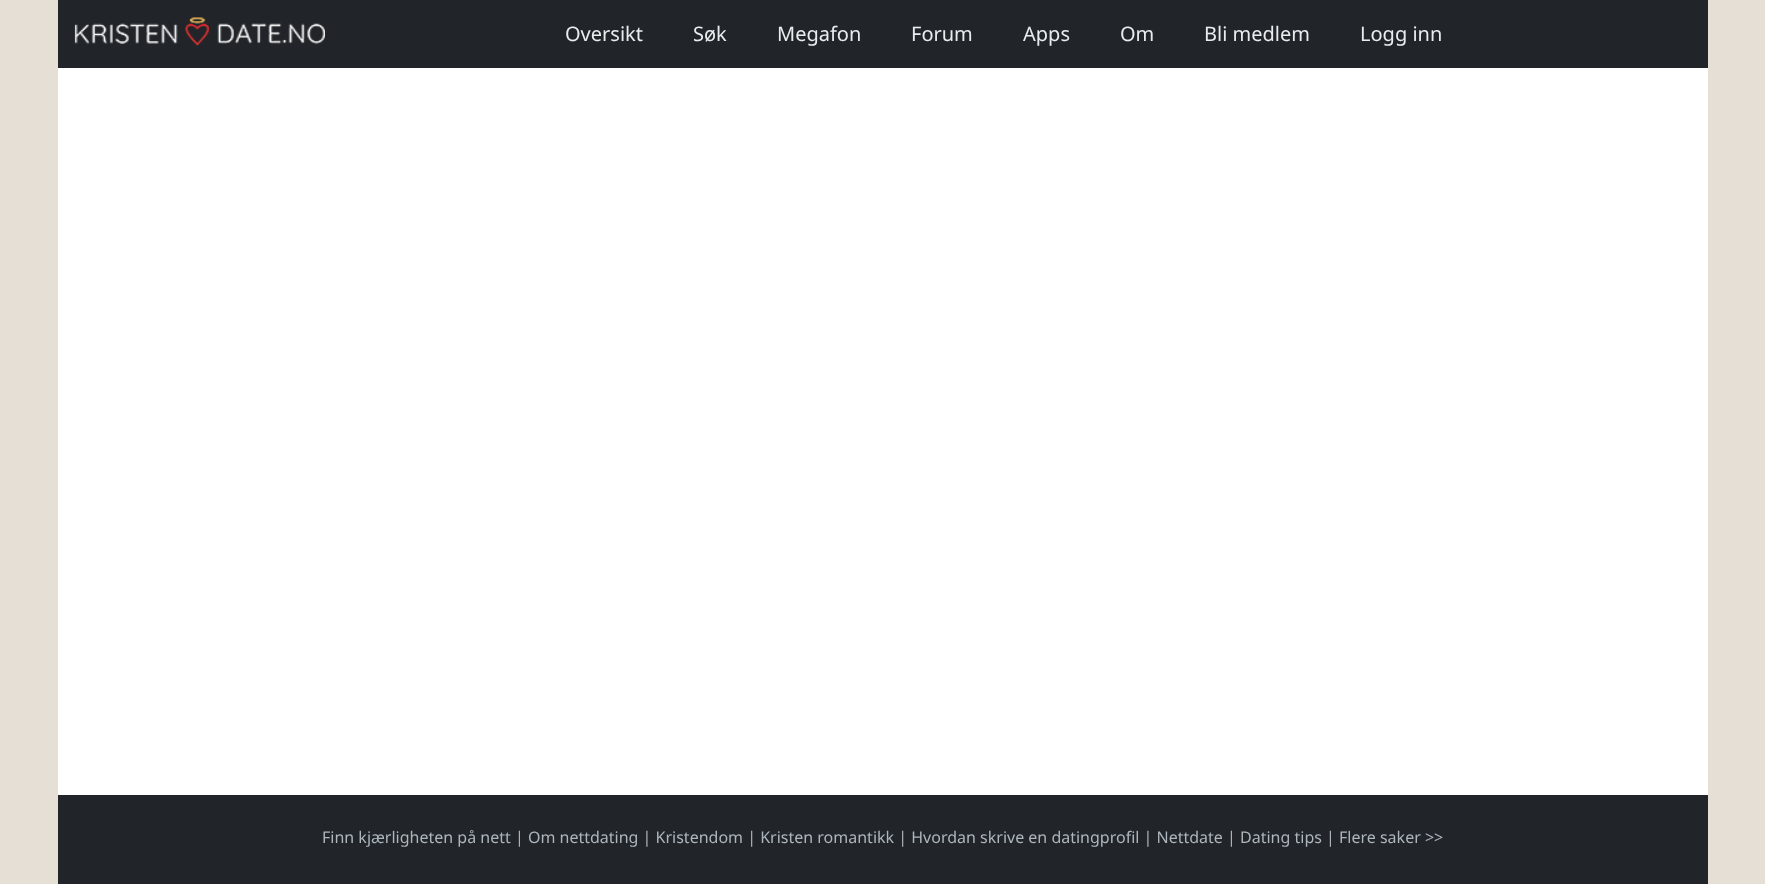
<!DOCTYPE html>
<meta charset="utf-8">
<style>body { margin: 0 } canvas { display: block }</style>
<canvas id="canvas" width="1765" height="884"></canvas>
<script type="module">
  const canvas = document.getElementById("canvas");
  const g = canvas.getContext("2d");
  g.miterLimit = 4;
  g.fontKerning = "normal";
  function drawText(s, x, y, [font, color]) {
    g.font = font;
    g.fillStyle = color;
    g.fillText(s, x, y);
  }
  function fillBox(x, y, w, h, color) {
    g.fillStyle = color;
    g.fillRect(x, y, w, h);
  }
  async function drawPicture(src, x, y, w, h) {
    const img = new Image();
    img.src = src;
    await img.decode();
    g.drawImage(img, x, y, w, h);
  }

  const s1 = ["20px Noto Sans", "#E9ECEF"];
  const s2 = ["16px Noto Sans", "#ADB5BD"];

  fillBox(0, 0, 1765, 884, "#E6DFD5");
  fillBox(58, 0, 1650, 68, "#212529");
  await drawPicture("pic1.png", 74, 17, 251, 29);
  drawText("Oversikt", 565, 41, s1);
  drawText("Søk", 693, 41, s1);
  drawText("Megafon", 777, 41, s1);
  drawText("Forum", 911, 41, s1);
  drawText("Apps", 1023, 41, s1);
  drawText("Om", 1120, 41, s1);
  drawText("Bli medlem", 1204, 41, s1);
  drawText("Logg inn", 1360, 41, s1);
  fillBox(58, 68, 1650, 727, "#FFFFFF");
  fillBox(58, 795, 1650, 89, "#212529");
  drawText("Finn kjærligheten på nett | Om nettdating | Kristendom | Kristen romantikk | Hvordan skrive en datingprofil | Nettdate | Dating tips | Flere saker >>", 322, 843, s2);
</script>
